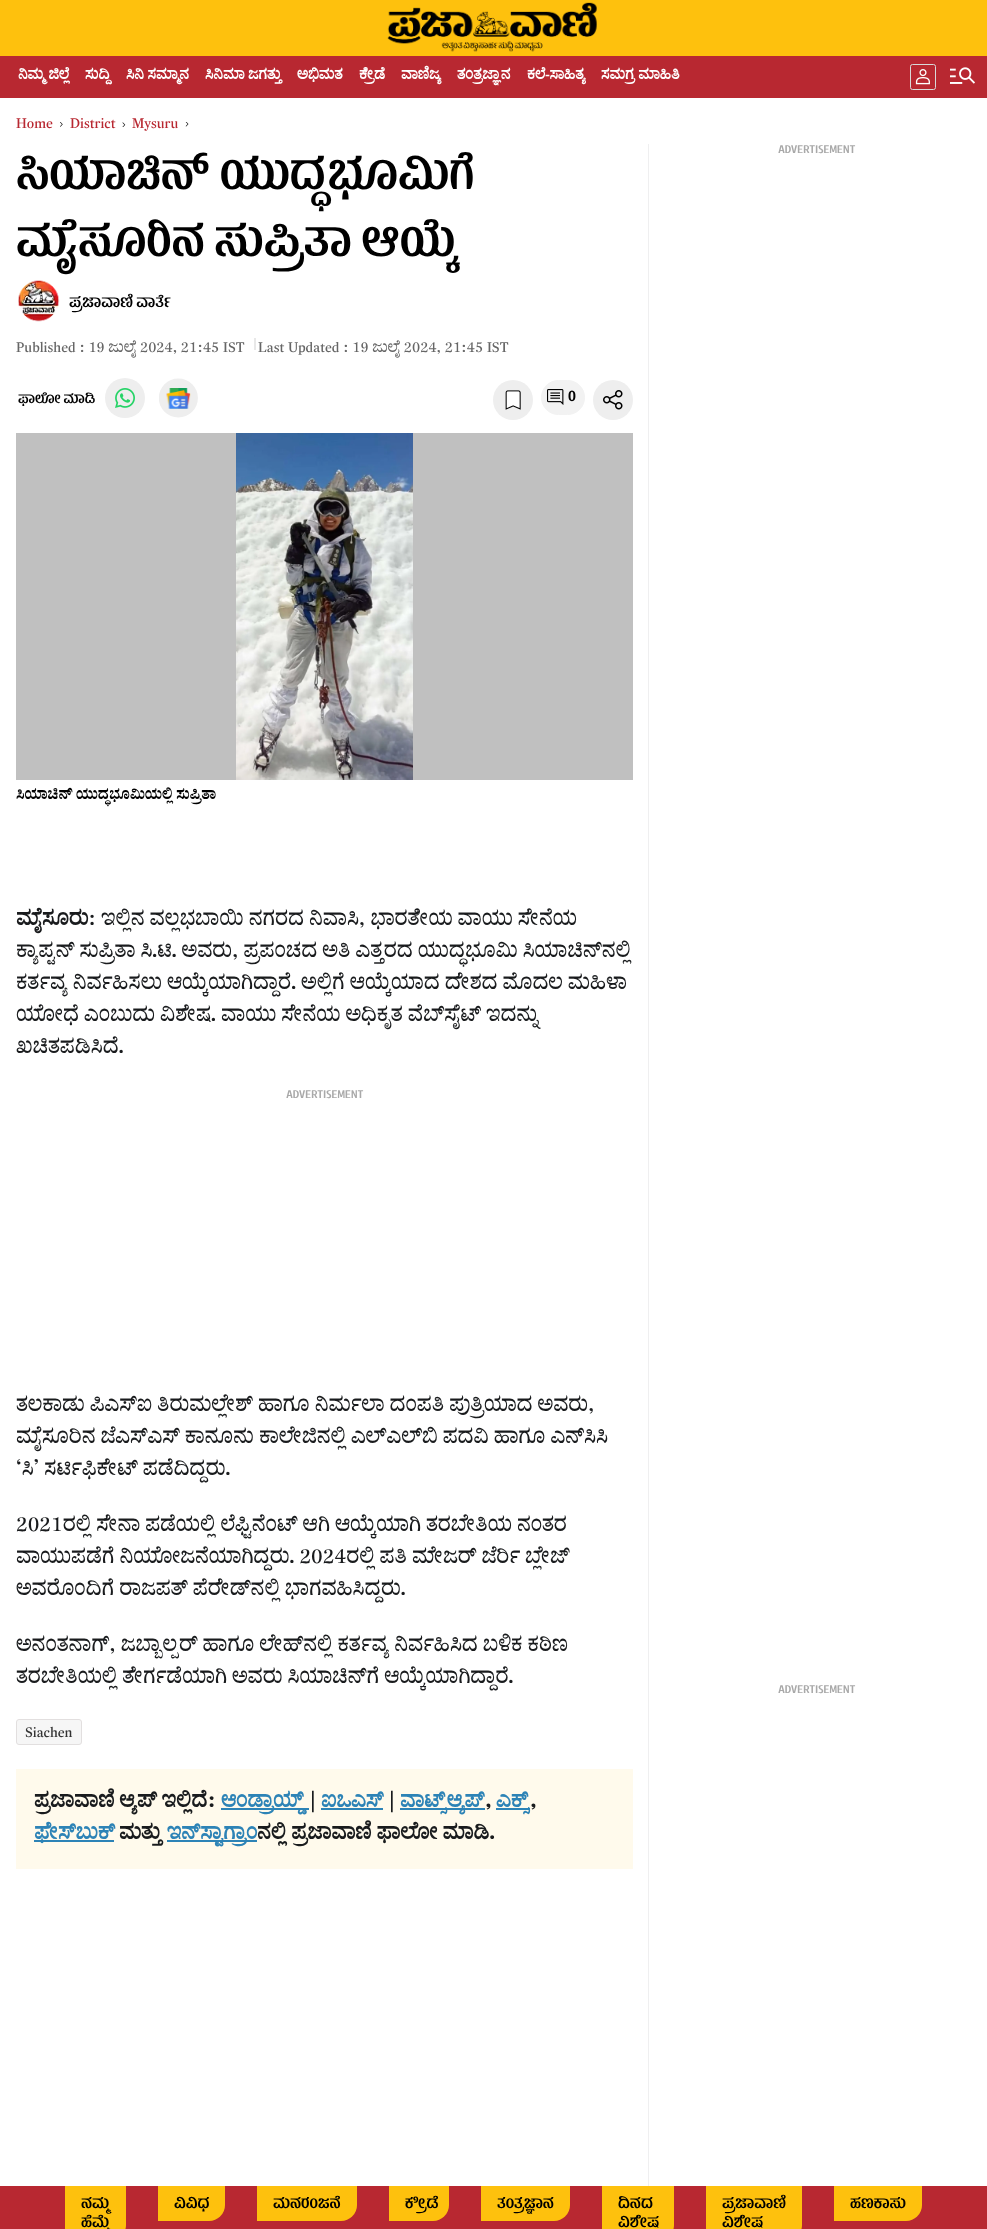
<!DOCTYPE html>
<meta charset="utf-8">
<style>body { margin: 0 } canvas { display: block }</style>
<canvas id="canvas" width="987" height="2229"></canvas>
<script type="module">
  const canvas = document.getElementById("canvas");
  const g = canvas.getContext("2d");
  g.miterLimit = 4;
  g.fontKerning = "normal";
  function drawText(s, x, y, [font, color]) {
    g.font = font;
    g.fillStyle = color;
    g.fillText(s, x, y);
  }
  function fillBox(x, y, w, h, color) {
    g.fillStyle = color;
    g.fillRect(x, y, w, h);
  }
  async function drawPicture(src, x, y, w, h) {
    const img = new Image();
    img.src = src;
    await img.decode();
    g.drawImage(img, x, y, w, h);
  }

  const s1 = ["bold 14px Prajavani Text", "#FFFFFF"];
  const s2 = ["14px Prajavani Text", "#B82831"];
  const s3 = ["600 48px 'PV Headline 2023'", "#000000"];
  const s4 = ["600 16px 'PV Headline 2023'", "#000000"];
  const s5 = ["14px Prajavani Text", "#666666"];
  const s6 = ["600 14px 'PV Headline 2023'", "#000000"];
  const s7 = ["600 14px Prajavani Text", "#000000"];
  const s8 = ["bold 20px Prajavani Text", "#191B1D"];
  const s9 = ["20px Prajavani Text", "#191B1D"];
  const s10 = ["600 12px 'PV Headline 2023'", "#A9A9A9"];
  const s11 = ["14px Prajavani Text", "#333333"];
  const s12 = ["bold 20px Prajavani Text", "#2D83B6"];

  fillBox(0, 0, 987, 2229, "#FFFFFF");
  fillBox(0, 0, 987, 56, "#FEC10D");
  await drawPicture("pic1.png", 387, 2, 210, 50);
  fillBox(0, 56, 987, 42, "#B82831");
  drawText("ನಿಮ್ಮ ಜಿಲ್ಲೆ", 18, 79, s1);
  drawText("ಸುದ್ದಿ", 85, 79, s1);
  drawText("ಸಿನಿ ಸಮ್ಮಾನ", 126, 79, s1);
  drawText("ಸಿನಿಮಾ ಜಗತ್ತು", 205, 79, s1);
  drawText("ಅಭಿಮತ", 297, 79, s1);
  drawText("ಕ್ರೀಡೆ", 359, 79, s1);
  drawText("ವಾಣಿಜ್ಯ", 401, 79, s1);
  drawText("ತಂತ್ರಜ್ಞಾನ", 457, 79, s1);
  drawText("ಕಲೆ-ಸಾಹಿತ್ಯ", 527, 79, s1);
  drawText("ಸಮಗ್ರ ಮಾಹಿತಿ", 601, 79, s1);
  g.beginPath();
  g.roundRect(910.5, 64.5, 25, 25, 2);
  g.strokeStyle = "#D9D9D9";
  g.stroke();
  await drawPicture("pic2.png", 915, 69, 15, 16);
  await drawPicture("pic3.png", 950, 67, 25, 17);
  drawText("Home", 16, 128, s2);
  await drawPicture("pic4.png", 60, 122, 3, 5);
  drawText("District", 70, 128, s2);
  await drawPicture("pic5.png", 122, 122, 4, 5);
  drawText("Mysuru", 132, 128, s2);
  await drawPicture("pic6.png", 185, 122, 4, 5);
  drawText("ಸಿಯಾಚಿನ್‌ ಯುದ್ಧಭೂಮಿಗೆ", 16, 189, s3);
  drawText("ಮೈಸೂರಿನ ಸುಪ್ರಿತಾ ಆಯ್ಕೆ", 16, 256, s3);
  await drawPicture("pic7.png", 18, 280, 42, 42);
  drawText("ಪ್ರಜಾವಾಣಿ ವಾರ್ತೆ", 69, 307, s4);
  drawText("Published : 19 ಜುಲೈ 2024, 21:45 IST", 16, 352, s5);
  fillBox(254, 338, 2, 12, "#E8E8E8");
  drawText("Last Updated : 19 ಜುಲೈ 2024, 21:45 IST", 258, 352, s5);
  drawText("ಫಾಲೋ ಮಾಡಿ", 18, 403, s6);
  g.fillStyle = "#EEEEEE";
  g.beginPath();
  g.arc(125, 398, 20, 0, Math.PI * 2);
  g.fill();
  await drawPicture("pic8.png", 115, 388, 20, 20);
  await drawPicture("pic9.png", 159, 378, 39, 40);
  g.beginPath();
  g.arc(513, 400, 20, 0, Math.PI * 2);
  g.fill();
  await drawPicture("pic10.png", 505, 390, 16, 20);
  g.fillStyle = "#F2F2F2";
  g.beginPath();
  g.roundRect(541.5, 380.5, 43, 34, 17);
  g.fill();
  g.strokeStyle = "#F2F2F2";
  g.stroke();
  await drawPicture("pic11.png", 547, 389, 17, 16);
  drawText("0", 568, 401, s4);
  g.fillStyle = "#EEEEEE";
  g.beginPath();
  g.arc(613, 400, 20, 0, Math.PI * 2);
  g.fill();
  await drawPicture("pic12.png", 603, 390, 20, 20);
  fillBox(16, 433, 617, 347, "#C0C0C0");
  await drawPicture("pic13.png", 236, 433, 177, 347);
  drawText("ಸಿಯಾಚಿನ್‌ ಯುದ್ಧಭೂಮಿಯಲ್ಲಿ ಸುಪ್ರಿತಾ", 16, 799, s7);
  drawText("ಮೈಸೂರು", 16, 925, s8);
  drawText(": ಇಲ್ಲಿನ ವಲ್ಲಭಬಾಯಿ ನಗರದ ನಿವಾಸಿ, ಭಾರತೀಯ ವಾಯು ಸೇನೆಯ", 88, 925, s9);
  drawText("ಕ್ಯಾಪ್ಟನ್ ಸುಪ್ರಿತಾ ಸಿ.ಟಿ. ಅವರು, ಪ್ರಪಂಚದ ಅತಿ ಎತ್ತರದ ಯುದ್ಧಭೂಮಿ ಸಿಯಾಚಿನ್‌ನಲ್ಲಿ", 16, 957, s9);
  drawText("ಕರ್ತವ್ಯ ನಿರ್ವಹಿಸಲು ಆಯ್ಕೆಯಾಗಿದ್ದಾರೆ. ಅಲ್ಲಿಗೆ ಆಯ್ಕೆಯಾದ ದೇಶದ ಮೊದಲ ಮಹಿಳಾ", 16, 989, s9);
  drawText("ಯೋಧೆ ಎಂಬುದು ವಿಶೇಷ. ವಾಯು ಸೇನೆಯ ಅಧಿಕೃತ ವೆಬ್‌ಸೈಟ್‌ ಇದನ್ನು", 16, 1021, s9);
  drawText("ಖಚಿತಪಡಿಸಿದೆ.", 16, 1053, s9);
  drawText("ADVERTISEMENT", 286, 1098, s10);
  drawText("ತಲಕಾಡು ಪಿಎಸ್‌ಐ ತಿರುಮಲ್ಲೇಶ್‌ ಹಾಗೂ ನಿರ್ಮಲಾ ದಂಪತಿ ಪುತ್ರಿಯಾದ ಅವರು,", 16, 1411, s9);
  drawText("ಮೈಸೂರಿನ ಜೆಎಸ್ಎಸ್ ಕಾನೂನು ಕಾಲೇಜಿನಲ್ಲಿ ಎಲ್‌ಎಲ್‌ಬಿ ಪದವಿ ಹಾಗೂ ಎನ್‌ಸಿಸಿ", 16, 1443, s9);
  drawText("‘ಸಿ’ ಸರ್ಟಿಫಿಕೇಟ್‌ ಪಡೆದಿದ್ದರು.", 16, 1475, s9);
  drawText("2021ರಲ್ಲಿ ಸೇನಾ ಪಡೆಯಲ್ಲಿ ಲೆಫ್ಟಿನೆಂಟ್‌ ಆಗಿ ಆಯ್ಕೆಯಾಗಿ ತರಬೇತಿಯ ನಂತರ", 16, 1531, s9);
  drawText("ವಾಯುಪಡೆಗೆ ನಿಯೋಜನೆಯಾಗಿದ್ದರು. 2024ರಲ್ಲಿ ಪತಿ ಮೇಜರ್‌ ಜೆರ್ರಿ ಬ್ಲೇಜ್", 16, 1563, s9);
  drawText("ಅವರೊಂದಿಗೆ ರಾಜಪತ್‌ ಪೆರೇಡ್‌ನಲ್ಲಿ ಭಾಗವಹಿಸಿದ್ದರು.", 16, 1595, s9);
  drawText("ಅನಂತನಾಗ್‌, ಜಬ್ಬಾಲ್ಪರ್‌ ಹಾಗೂ ಲೇಹ್‌ನಲ್ಲಿ ಕರ್ತವ್ಯ ನಿರ್ವಹಿಸಿದ ಬಳಿಕ ಕಠಿಣ", 16, 1651, s9);
  drawText("ತರಬೇತಿಯಲ್ಲಿ ತೇರ್ಗಡೆಯಾಗಿ ಅವರು ಸಿಯಾಚಿನ್‌ಗೆ ಆಯ್ಕೆಯಾಗಿದ್ದಾರೆ.", 16, 1683, s9);
  g.fillStyle = "#F6F6F6";
  g.beginPath();
  g.roundRect(16.5, 1719.5, 65, 25, 2.5);
  g.fill();
  g.strokeStyle = "#E2DFDF";
  g.stroke();
  drawText("Siachen", 25, 1737, s11);
  fillBox(16, 1769, 617, 100, "#FFFAEC");
  drawText("ಪ್ರಜಾವಾಣಿ ಆ್ಯಪ್ ಇಲ್ಲಿದೆ:", 34, 1807, s8);
  fillBox(221, 1808, 88, 2, "#2D83B6");
  drawText("ಆಂಡ್ರಾಯ್ಡ್", 221, 1807, s12);
  drawText("|", 309, 1807, s8);
  drawText("ಐಒಎಸ್", 321, 1807, s12);
  fillBox(321, 1808, 62, 2, "#2D83B6");
  drawText("|", 388, 1807, s8);
  fillBox(400, 1808, 85, 2, "#2D83B6");
  drawText("ವಾಟ್ಸ್ಆ್ಯಪ್", 400, 1807, s12);
  drawText(",", 485, 1807, s8);
  fillBox(496, 1808, 34, 2, "#2D83B6");
  drawText("ಎಕ್ಸ್", 496, 1807, s12);
  drawText(",", 530, 1807, s8);
  fillBox(34, 1840, 80, 2, "#2D83B6");
  drawText("ಫೇಸ್‌ಬುಕ್", 34, 1839, s12);
  drawText("ಮತ್ತು", 119, 1839, s8);
  fillBox(167, 1840, 90, 2, "#2D83B6");
  drawText("ಇನ್‌ಸ್ಟಾಗ್ರಾಂ", 167, 1839, s12);
  drawText("ನಲ್ಲಿ ಪ್ರಜಾವಾಣಿ ಫಾಲೋ ಮಾಡಿ.", 257, 1839, s8);
  fillBox(648, 144, 1, 2042, "#EFEFF0");
  drawText("ADVERTISEMENT", 778, 153, s10);
  drawText("ADVERTISEMENT", 778, 1693, s10);
  fillBox(0, 2186, 987, 43, "#B82831");
  g.fillStyle = "#FEC10D";
  g.beginPath();
  g.moveTo(65, 2186);
  g.lineTo(126, 2186);
  g.lineTo(126, 2225);
  g.bezierCurveTo(126, 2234, 119, 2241, 110, 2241);
  g.lineTo(65, 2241);
  g.closePath();
  g.fill();
  drawText("ನಮ್ಮ", 81, 2208, s4);
  drawText("ಹೆಮ್ಮೆ", 81, 2227, s4);
  g.fillStyle = "#FEC10D";
  g.beginPath();
  g.roundRect(158, 2186, 67, 35, [0, 0, 16, 0]);
  g.fill();
  drawText("ವಿವಿಧ", 174, 2208, s4);
  g.fillStyle = "#FEC10D";
  g.beginPath();
  g.roundRect(257, 2186, 100, 35, [0, 0, 16, 0]);
  g.fill();
  drawText("ಮನರಂಜನೆ", 273, 2208, s4);
  g.fillStyle = "#FEC10D";
  g.beginPath();
  g.roundRect(389, 2186, 60, 35, [0, 0, 16, 0]);
  g.fill();
  drawText("ಕ್ರೀಡೆ", 405, 2208, s4);
  g.fillStyle = "#FEC10D";
  g.beginPath();
  g.roundRect(481, 2186, 89, 35, [0, 0, 16, 0]);
  g.fill();
  drawText("ತಂತ್ರಜ್ಞಾನ", 497, 2208, s4);
  g.fillStyle = "#FEC10D";
  g.beginPath();
  g.moveTo(602, 2186);
  g.lineTo(674, 2186);
  g.lineTo(674, 2225);
  g.bezierCurveTo(674, 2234, 667, 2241, 658, 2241);
  g.lineTo(602, 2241);
  g.closePath();
  g.fill();
  drawText("ದಿನದ", 618, 2208, s4);
  drawText("ವಿಶೇಷ", 618, 2227, s4);
  g.fillStyle = "#FEC10D";
  g.beginPath();
  g.moveTo(706, 2186);
  g.lineTo(802, 2186);
  g.lineTo(802, 2225);
  g.bezierCurveTo(802, 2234, 795, 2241, 786, 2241);
  g.lineTo(706, 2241);
  g.closePath();
  g.fill();
  drawText("ಪ್ರಜಾವಾಣಿ", 722, 2208, s4);
  drawText("ವಿಶೇಷ", 722, 2227, s4);
  g.fillStyle = "#FEC10D";
  g.beginPath();
  g.roundRect(834, 2186, 88, 35, [0, 0, 16, 0]);
  g.fill();
  drawText("ಹಣಕಾಸು", 850, 2208, s4);
</script>
